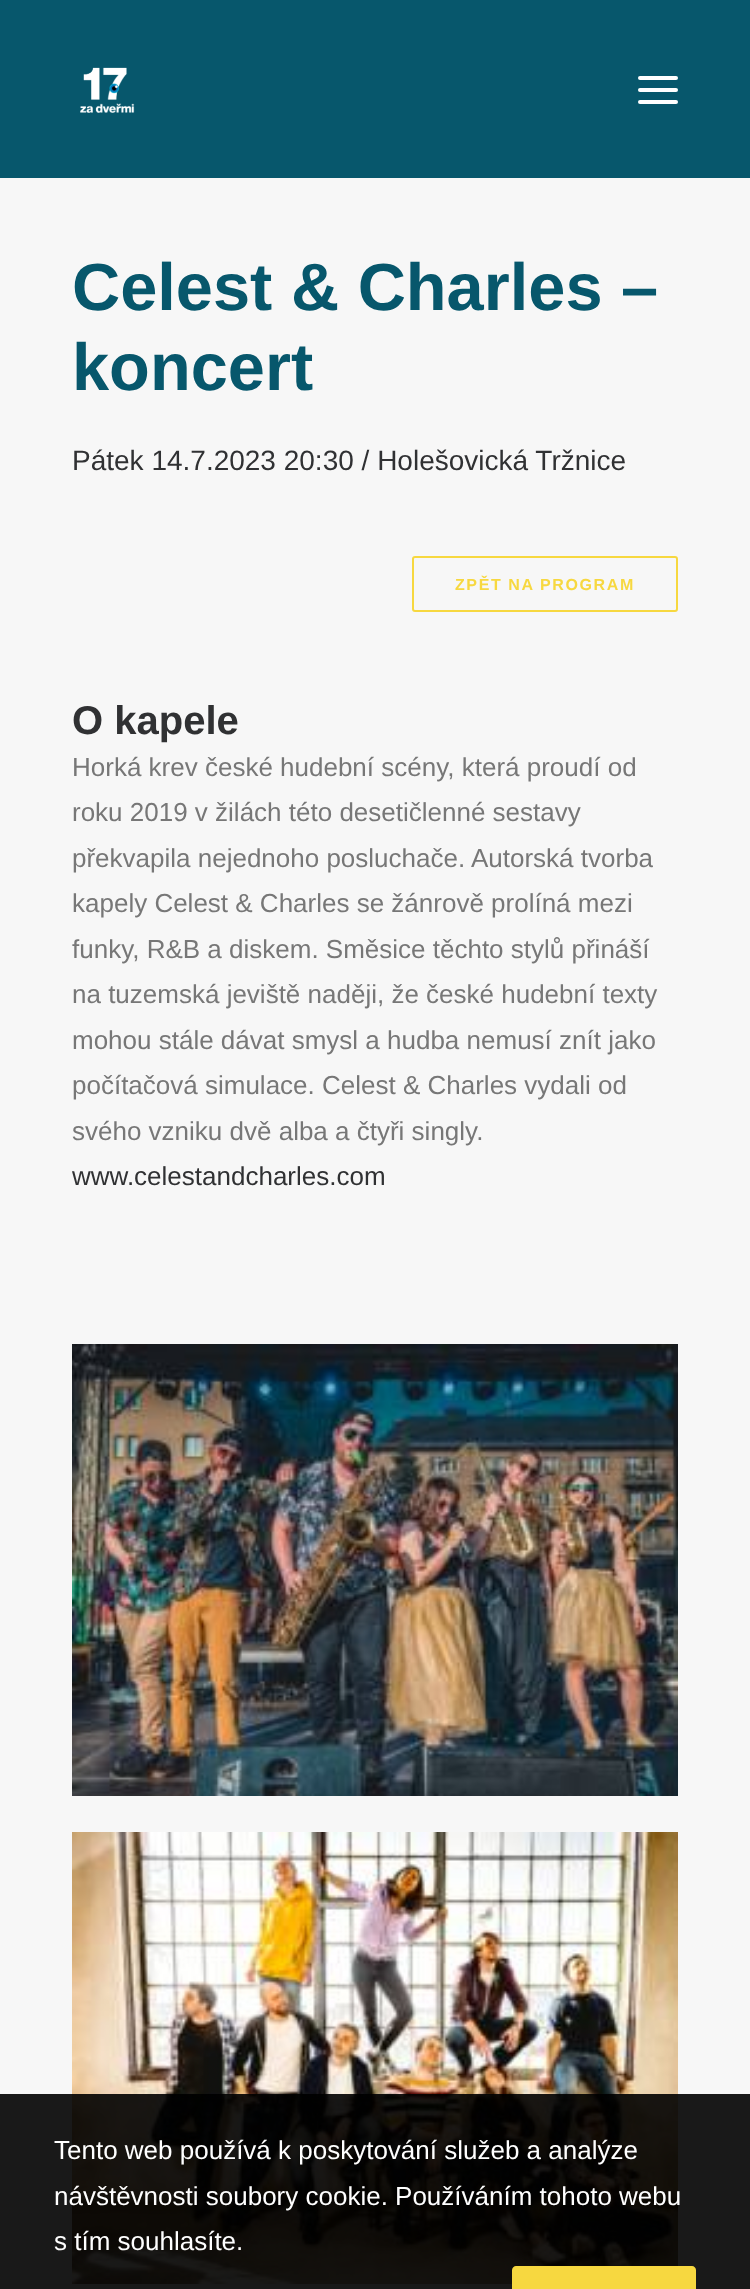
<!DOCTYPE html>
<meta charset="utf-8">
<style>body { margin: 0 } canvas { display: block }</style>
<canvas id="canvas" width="750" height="2289"></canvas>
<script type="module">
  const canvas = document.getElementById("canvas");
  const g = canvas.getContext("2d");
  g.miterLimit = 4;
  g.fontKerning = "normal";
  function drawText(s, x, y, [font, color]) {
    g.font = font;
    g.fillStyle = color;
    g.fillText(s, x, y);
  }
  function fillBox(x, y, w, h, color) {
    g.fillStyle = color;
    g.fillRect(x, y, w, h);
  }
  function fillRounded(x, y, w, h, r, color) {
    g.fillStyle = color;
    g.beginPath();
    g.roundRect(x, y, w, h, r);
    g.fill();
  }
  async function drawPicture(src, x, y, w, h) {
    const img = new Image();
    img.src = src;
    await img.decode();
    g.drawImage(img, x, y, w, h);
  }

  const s1 = ["bold 66.75px Liberation Sans", "#07576C"];
  const s2 = ["28px Liberation Sans", "#303133"];
  const s3 = ["bold 16px Liberation Sans", "#F7D840"];
  const s4 = ["bold 40px Liberation Sans", "#303133"];
  const s5 = ["26px Liberation Sans", "#777777"];
  const s6 = ["26px Liberation Sans", "#303133"];
  const s7 = ["26px Liberation Sans", "#FFFFFF"];

  fillBox(0, 0, 750, 2289, "#F7F7F7");
  fillBox(0, 0, 750, 178, "#07576C");
  await drawPicture("pic1.png", 80, 67, 55, 46);
  fillRounded(638, 88, 40, 4, 2, "#FFFFFF");
  fillRounded(638, 76, 40, 4, 2, "#FFFFFF");
  fillRounded(638, 100, 40, 4, 2, "#FFFFFF");
  drawText("Celest & Charles –", 72, 310, s1);
  drawText("koncert", 72, 390, s1);
  drawText("Pátek 14.7.2023 20:30 / Holešovická Tržnice", 72, 470, s2);
  g.beginPath();
  g.roundRect(413, 557, 264, 54, 2);
  g.strokeStyle = "#F7D840";
  g.lineWidth = 2;
  g.stroke();
  g.letterSpacing = "1.6px";
  drawText("ZPĚT NA PROGRAM", 455, 590, s3);
  g.letterSpacing = "0px";
  drawText("O kapele", 72, 734, s4);
  drawText("Horká krev české hudební scény, která proudí od", 72, 776, s5);
  drawText("roku 2019 v žilách této desetičlenné sestavy", 72, 821, s5);
  drawText("překvapila nejednoho posluchače. Autorská tvorba", 72, 867, s5);
  drawText("kapely Celest & Charles se žánrově prolíná mezi", 72, 912, s5);
  drawText("funky, R&B a diskem. Směsice těchto stylů přináší", 72, 958, s5);
  drawText("na tuzemská jeviště naději, že české hudební texty", 72, 1003, s5);
  drawText("mohou stále dávat smysl a hudba nemusí znít jako", 72, 1049, s5);
  drawText("počítačová simulace. Celest & Charles vydali od", 72, 1094, s5);
  drawText("svého vzniku dvě alba a čtyři singly.", 72, 1140, s5);
  drawText("www.celestandcharles.com", 72, 1185, s6);
  await drawPicture("pic2.png", 72, 1344, 606, 452);
  await drawPicture("pic3.png", 72, 1832, 606, 452);
  fillBox(0, 2094, 750, 195, "rgba(0, 0, 0, 0.9)");
  drawText("Tento web používá k poskytování služeb a analýze", 54, 2159, s7);
  drawText("návštěvnosti soubory cookie. Používáním tohoto webu", 54, 2205, s7);
  drawText("s tím souhlasíte.", 54, 2250, s7);
  g.fillStyle = "#F7D840";
  g.beginPath();
  g.moveTo(516, 2266);
  g.lineTo(692, 2266);
  g.bezierCurveTo(694, 2266, 696, 2268, 696, 2270);
  g.lineTo(696, 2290);
  g.lineTo(512, 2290);
  g.lineTo(512, 2270);
  g.bezierCurveTo(512, 2268, 514, 2266, 516, 2266);
  g.closePath();
  g.fill();
</script>
